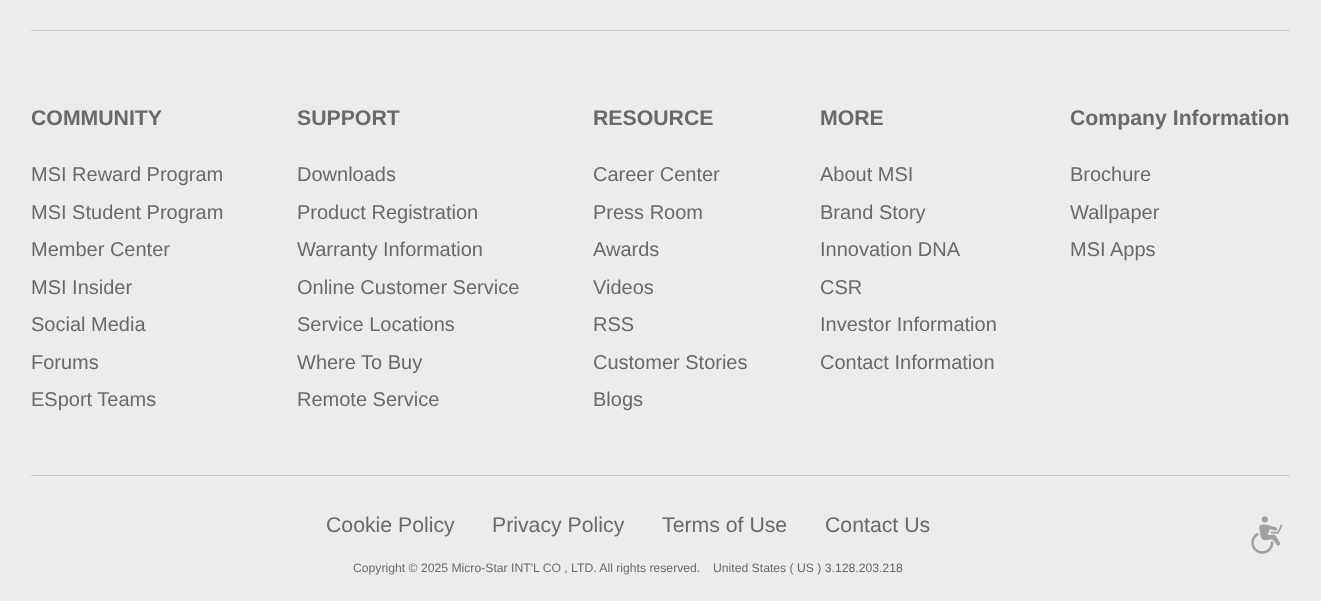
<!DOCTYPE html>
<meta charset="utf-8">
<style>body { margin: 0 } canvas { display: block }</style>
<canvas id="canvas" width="1321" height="601"></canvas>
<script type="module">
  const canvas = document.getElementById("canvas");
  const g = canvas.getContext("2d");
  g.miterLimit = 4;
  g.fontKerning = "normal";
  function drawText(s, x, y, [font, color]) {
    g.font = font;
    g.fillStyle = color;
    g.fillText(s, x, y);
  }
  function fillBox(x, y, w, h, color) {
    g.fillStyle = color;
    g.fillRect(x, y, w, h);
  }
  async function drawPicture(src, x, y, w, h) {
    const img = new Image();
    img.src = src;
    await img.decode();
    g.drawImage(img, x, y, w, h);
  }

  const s1 = ["bold 21.25px Liberation Sans", "#696969"];
  const s2 = ["20px Liberation Sans", "#696969"];
  const s3 = ["21.25px Liberation Sans", "#696969"];
  const s4 = ["12.2px Liberation Sans", "#696969"];

  fillBox(0, 0, 1321, 601, "#ECECEC");
  fillBox(31, 30, 1259, 1, "#CCCCCC");
  drawText("COMMUNITY", 31, 125, s1);
  drawText("MSI Reward Program", 31, 181, s2);
  drawText("MSI Student Program", 31, 219, s2);
  drawText("Member Center", 31, 256, s2);
  drawText("MSI Insider", 31, 294, s2);
  drawText("Social Media", 31, 331, s2);
  drawText("Forums", 31, 369, s2);
  drawText("ESport Teams", 31, 406, s2);
  drawText("SUPPORT", 297, 125, s1);
  drawText("Downloads", 297, 181, s2);
  drawText("Product Registration", 297, 219, s2);
  drawText("Warranty Information", 297, 256, s2);
  drawText("Online Customer Service", 297, 294, s2);
  drawText("Service Locations", 297, 331, s2);
  drawText("Where To Buy", 297, 369, s2);
  drawText("Remote Service", 297, 406, s2);
  drawText("RESOURCE", 593, 125, s1);
  drawText("Career Center", 593, 181, s2);
  drawText("Press Room", 593, 219, s2);
  drawText("Awards", 593, 256, s2);
  drawText("Videos", 593, 294, s2);
  drawText("RSS", 593, 331, s2);
  drawText("Customer Stories", 593, 369, s2);
  drawText("Blogs", 593, 406, s2);
  drawText("MORE", 820, 125, s1);
  drawText("About MSI", 820, 181, s2);
  drawText("Brand Story", 820, 219, s2);
  drawText("Innovation DNA", 820, 256, s2);
  drawText("CSR", 820, 294, s2);
  drawText("Investor Information", 820, 331, s2);
  drawText("Contact Information", 820, 369, s2);
  drawText("Company Information", 1070, 125, s1);
  drawText("Brochure", 1070, 181, s2);
  drawText("Wallpaper", 1070, 219, s2);
  drawText("MSI Apps", 1070, 256, s2);
  fillBox(31, 475, 1259, 1, "#CCCCCC");
  drawText("Cookie Policy", 326, 532, s3);
  drawText("Privacy Policy", 492, 532, s3);
  drawText("Terms of Use", 662, 532, s3);
  drawText("Contact Us", 825, 532, s3);
  drawText("Copyright © 2025 Micro-Star INT'L CO , LTD. All rights reserved.", 353, 572, s4);
  drawText("United States ( US ) 3.128.203.218", 713, 572, s4);
  await drawPicture("pic1.png", 1251, 516, 32, 38);
</script>
